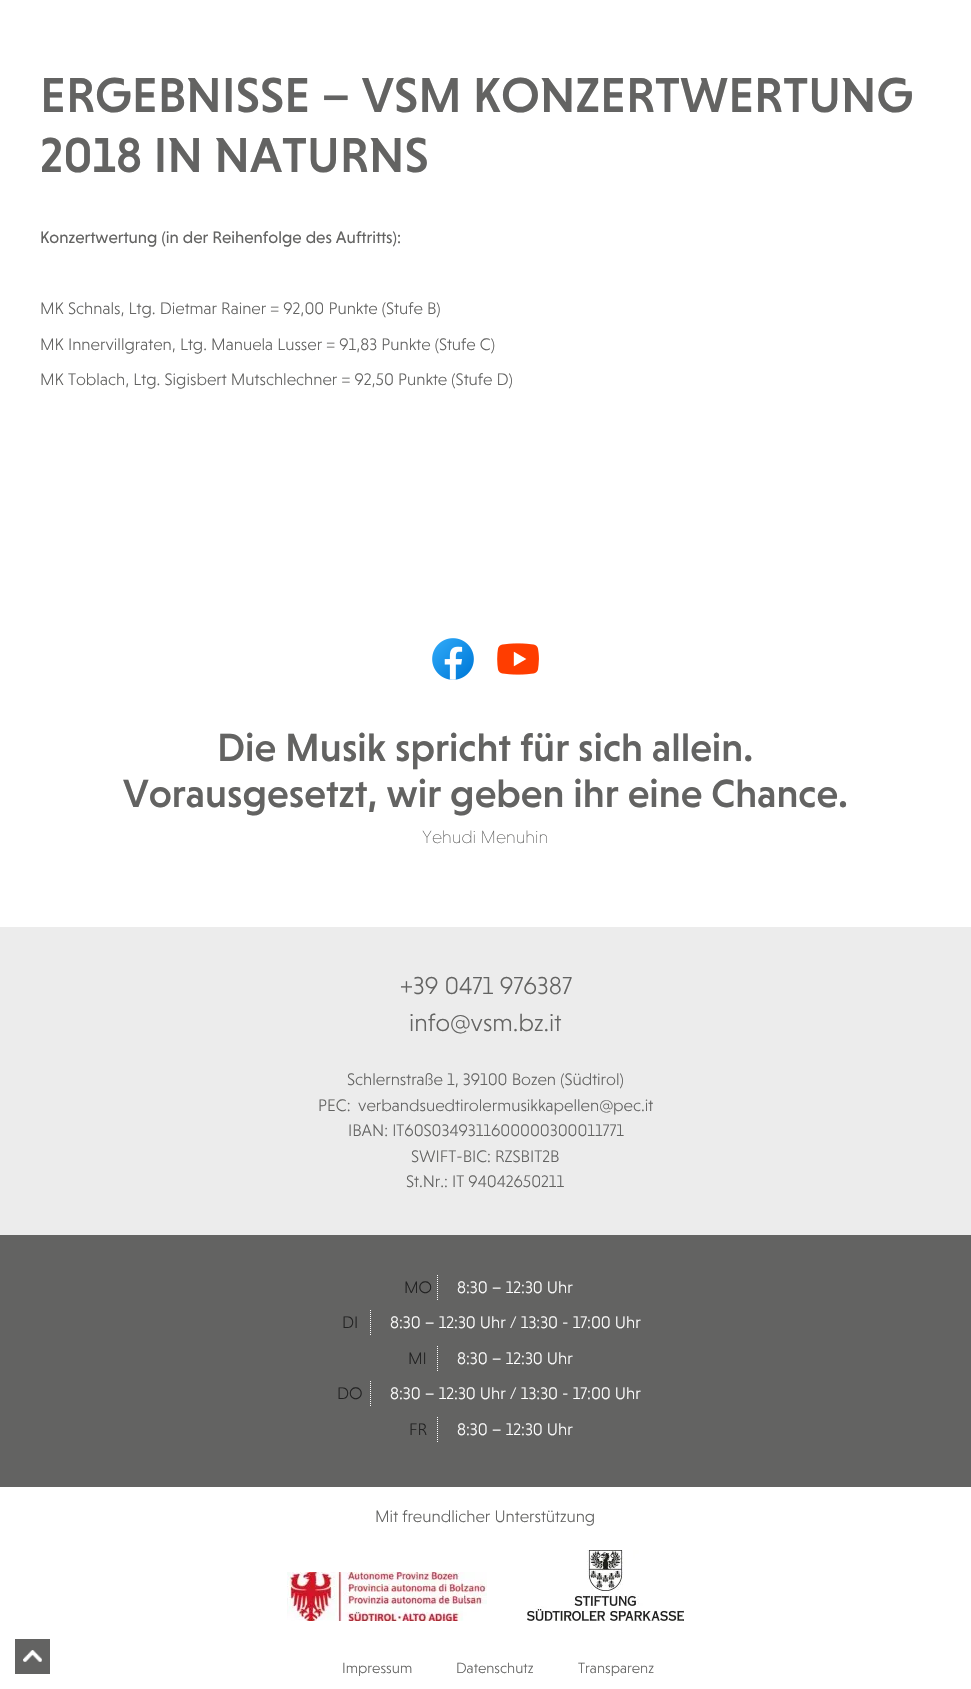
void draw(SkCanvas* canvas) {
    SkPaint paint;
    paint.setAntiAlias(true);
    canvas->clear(0xFFFFFFFF);
    SkFont font1(fontMgr->matchFamilyStyle("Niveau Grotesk", SkFontStyle(500, SkFontStyle::kNormal_Width, SkFontStyle::kUpright_Slant)), 50);
    font1.setSubpixel(true);
    paint.setColor(0xFF636362);
    canvas->drawString("ERGEBNISSE – VSM KONZERTWERTUNG", 40, 112, font1, paint);
    canvas->drawString("2018 IN NATURNS", 40, 172, font1, paint);
    SkFont font2(fontMgr->matchFamilyStyle("Niveau Grotesk", SkFontStyle::Normal()), 17);
    font2.setSubpixel(true);
    canvas->drawString("Konzertwertung (in der Reihenfolge des Auftritts):", 40, 243, font2, paint);
    SkFont font3(fontMgr->matchFamilyStyle("Niveau Grotesk", SkFontStyle(300, SkFontStyle::kNormal_Width, SkFontStyle::kUpright_Slant)), 17);
    font3.setSubpixel(true);
    canvas->drawString("MK Schnals, Ltg. Dietmar Rainer = 92,00 Punkte (Stufe B)", 40, 314, font3, paint);
    canvas->drawString("MK Innervillgraten, Ltg. Manuela Lusser = 91,83 Punkte (Stufe C)", 40, 350, font3, paint);
    canvas->drawString("MK Toblach, Ltg. Sigisbert Mutschlechner = 92,50 Punkte (Stufe D)", 40, 385, font3, paint);
    canvas->drawImageRect(SkImages::DeferredFromEncodedData(SkData::MakeFromFileName("img1.png")), SkRect::MakeXYWH(432, 638, 42, 42), SkSamplingOptions());
    canvas->drawImageRect(SkImages::DeferredFromEncodedData(SkData::MakeFromFileName("img2.png")), SkRect::MakeXYWH(497, 643, 42, 32), SkSamplingOptions());
    SkFont font4(fontMgr->matchFamilyStyle("Niveau Grotesk", SkFontStyle(500, SkFontStyle::kNormal_Width, SkFontStyle::kUpright_Slant)), 40);
    font4.setSubpixel(true);
    canvas->drawString("Die Musik spricht für sich allein.", 217, 761, font4, paint);
    canvas->drawString("Vorausgesetzt, wir geben ihr eine Chance.", 123, 807, font4, paint);
    SkFont font5(fontMgr->matchFamilyStyle("Niveau Grotesk", SkFontStyle(200, SkFontStyle::kNormal_Width, SkFontStyle::kUpright_Slant)), 18);
    font5.setSubpixel(true);
    canvas->drawString("Yehudi Menuhin", 422, 843, font5, paint);
    paint.setColor(0xFFECECEC);
    canvas->drawRect(SkRect::MakeXYWH(0, 927, 971, 308), paint);
    SkFont font6(fontMgr->matchFamilyStyle("Niveau Grotesk", SkFontStyle(300, SkFontStyle::kNormal_Width, SkFontStyle::kUpright_Slant)), 25);
    font6.setSubpixel(true);
    paint.setColor(0xFF636362);
    canvas->drawString("+39 0471 976387", 400, 994, font6, paint);
    canvas->drawString("info@vsm.bz.it", 409, 1031, font6, paint);
    canvas->drawString("Schlernstraße 1, 39100 Bozen (Südtirol)", 347, 1085, font3, paint);
    canvas->drawString("PEC:", 318, 1111, font3, paint);
    canvas->drawString("verbandsuedtirolermusikkapellen@pec.it", 358, 1111, font3, paint);
    canvas->drawString("IBAN: IT60S0349311600000300011771", 348, 1136, font3, paint);
    canvas->drawString("SWIFT-BIC: RZSBIT2B", 411, 1162, font3, paint);
    canvas->drawString("St.Nr.: IT 94042650211", 406, 1187, font3, paint);
    canvas->drawRect(SkRect::MakeXYWH(0, 1235, 971, 252), paint);
    paint.setStyle(SkPaint::kStroke_Style);
    paint.setStrokeWidth(1);
    paint.setColor(0xFFFFFFFF);
    paint.setPathEffect(SkDashPathEffect::Make({{1, 1}}, 0));
    canvas->drawPath(SkPathBuilder().moveTo(437.5f, 1275).lineTo(437.5f, 1300).detach(), paint);
    paint.setPathEffect(nullptr);
    paint.setStyle(SkPaint::kFill_Style);
    paint.setColor(0xFF222222);
    canvas->drawString("MO", 404, 1293, font3, paint);
    paint.setColor(0xFFFFFFFF);
    canvas->drawString("8:30 – 12:30 Uhr", 457, 1293, font3, paint);
    paint.setStyle(SkPaint::kStroke_Style);
    paint.setPathEffect(SkDashPathEffect::Make({{1, 1}}, 0));
    canvas->drawPath(SkPathBuilder().moveTo(370.5f, 1310).lineTo(370.5f, 1336).detach(), paint);
    paint.setPathEffect(nullptr);
    paint.setStyle(SkPaint::kFill_Style);
    paint.setColor(0xFF222222);
    canvas->drawString("DI", 342, 1328, font3, paint);
    paint.setColor(0xFFFFFFFF);
    canvas->drawString("8:30 – 12:30 Uhr / 13:30 - 17:00 Uhr", 390, 1328, font3, paint);
    paint.setStyle(SkPaint::kStroke_Style);
    paint.setPathEffect(SkDashPathEffect::Make({{1, 1}}, 0));
    canvas->drawPath(SkPathBuilder().moveTo(437.5f, 1346).lineTo(437.5f, 1371).detach(), paint);
    paint.setPathEffect(nullptr);
    paint.setStyle(SkPaint::kFill_Style);
    paint.setColor(0xFF222222);
    canvas->drawString("MI", 408, 1364, font3, paint);
    paint.setColor(0xFFFFFFFF);
    canvas->drawString("8:30 – 12:30 Uhr", 457, 1364, font3, paint);
    paint.setStyle(SkPaint::kStroke_Style);
    paint.setPathEffect(SkDashPathEffect::Make({{1, 1}}, 0));
    canvas->drawPath(SkPathBuilder().moveTo(370.5f, 1381).lineTo(370.5f, 1407).detach(), paint);
    paint.setPathEffect(nullptr);
    paint.setStyle(SkPaint::kFill_Style);
    paint.setColor(0xFF222222);
    canvas->drawString("DO", 337, 1399, font3, paint);
    paint.setColor(0xFFFFFFFF);
    canvas->drawString("8:30 – 12:30 Uhr / 13:30 - 17:00 Uhr", 390, 1399, font3, paint);
    paint.setStyle(SkPaint::kStroke_Style);
    paint.setPathEffect(SkDashPathEffect::Make({{1, 1}}, 0));
    canvas->drawPath(SkPathBuilder().moveTo(437.5f, 1417).lineTo(437.5f, 1442).detach(), paint);
    paint.setPathEffect(nullptr);
    paint.setStyle(SkPaint::kFill_Style);
    paint.setColor(0xFF222222);
    canvas->drawString("FR", 409, 1435, font3, paint);
    paint.setColor(0xFFFFFFFF);
    canvas->drawString("8:30 – 12:30 Uhr", 457, 1435, font3, paint);
    paint.setColor(0xFF636362);
    canvas->drawRect(SkRect::MakeXYWH(15, 1639, 35, 35), paint);
    canvas->drawImageRect(SkImages::DeferredFromEncodedData(SkData::MakeFromFileName("img3.png")), SkRect::MakeXYWH(23, 1650, 19, 12), SkSamplingOptions());
    canvas->drawString("Mit freundlicher Unterstützung", 375, 1522, font3, paint);
    canvas->drawImageRect(SkImages::DeferredFromEncodedData(SkData::MakeFromFileName("img4.png")), SkRect::MakeXYWH(287, 1572, 200, 49), SkSamplingOptions());
    canvas->drawImageRect(SkImages::DeferredFromEncodedData(SkData::MakeFromFileName("img5.png")), SkRect::MakeXYWH(527, 1550, 157, 71), SkSamplingOptions());
    SkFont font7(fontMgr->matchFamilyStyle("Niveau Grotesk", SkFontStyle(300, SkFontStyle::kNormal_Width, SkFontStyle::kUpright_Slant)), 15);
    font7.setSubpixel(true);
    canvas->drawString("Impressum", 342, 1673, font7, paint);
    canvas->drawString("Datenschutz", 456, 1673, font7, paint);
    canvas->drawString("Transparenz", 578, 1673, font7, paint);
}
